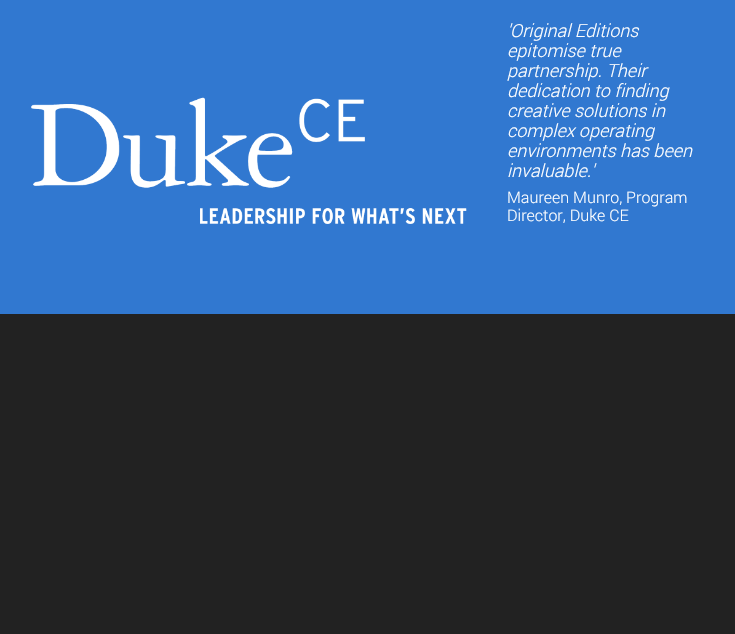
void draw(SkCanvas* canvas) {
    SkPaint paint;
    paint.setAntiAlias(true);
    canvas->clear(0xFF222222);
    paint.setColor(0xFF3178D0);
    canvas->drawRect(SkRect::MakeXYWH(0, 0, 735, 314), paint);
    canvas->drawImageRect(SkImages::DeferredFromEncodedData(SkData::MakeFromFileName("img1.png")), SkRect::MakeXYWH(31, 97, 436, 127), SkSamplingOptions());
    SkFont font1(fontMgr->matchFamilyStyle("Roboto", SkFontStyle(300, SkFontStyle::kNormal_Width, SkFontStyle::kItalic_Slant)), 18);
    font1.setSubpixel(true);
    paint.setColor(0xFFFFFFFF);
    canvas->drawString("'Original Editions", 507, 37, font1, paint);
    canvas->drawString("epitomise true", 507, 57, font1, paint);
    canvas->drawString("partnership. Their", 507, 77, font1, paint);
    canvas->drawString("dedication to finding", 507, 97, font1, paint);
    canvas->drawString("creative solutions in", 507, 117, font1, paint);
    canvas->drawString("complex operating", 507, 137, font1, paint);
    canvas->drawString("environments has been", 507, 157, font1, paint);
    canvas->drawString("invaluable.'", 507, 177, font1, paint);
    SkFont font2(fontMgr->matchFamilyStyle("Roboto", SkFontStyle(300, SkFontStyle::kNormal_Width, SkFontStyle::kUpright_Slant)), 16);
    font2.setSubpixel(true);
    canvas->drawString("Maureen Munro, Program", 507, 203, font2, paint);
    canvas->drawString("Director, Duke CE", 507, 221, font2, paint);
}
